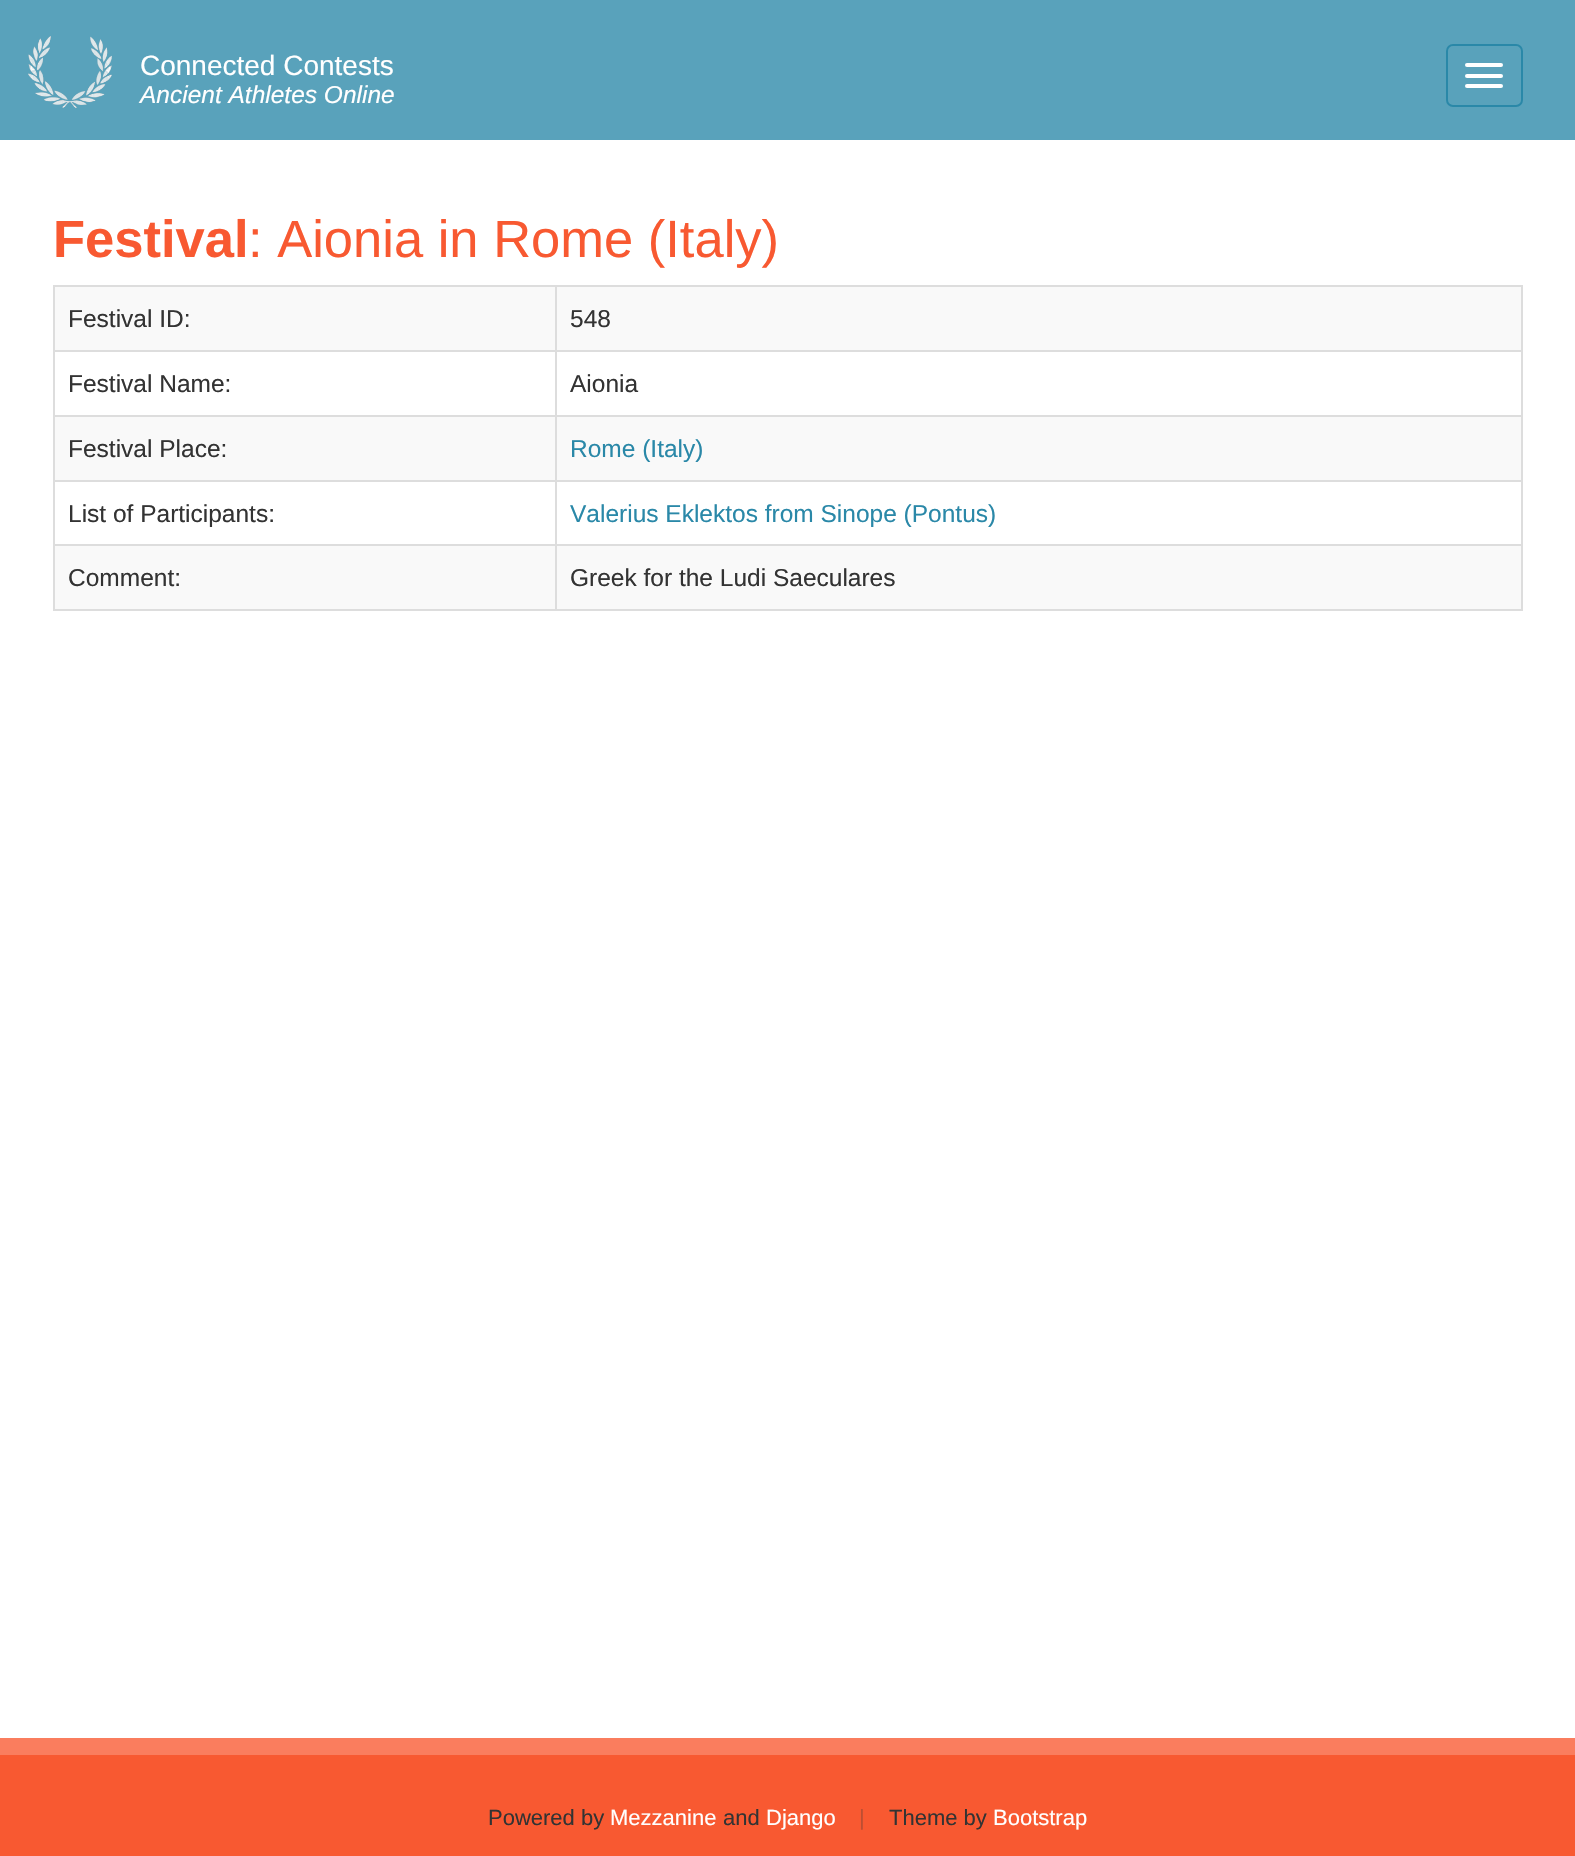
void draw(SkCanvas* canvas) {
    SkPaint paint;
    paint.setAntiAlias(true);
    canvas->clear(0xFFFFFFFF);
    paint.setColor(0xFF59A2BB);
    canvas->drawRect(SkRect::MakeXYWH(0, 0, 1575, 140), paint);
    canvas->drawImageRect(SkImages::DeferredFromEncodedData(SkData::MakeFromFileName("img1.png")), SkRect::MakeXYWH(28, 36, 84, 73), SkSamplingOptions());
    SkFont font1(fontMgr->matchFamilyStyle("Liberation Sans", SkFontStyle::Normal()), 28);
    font1.setSubpixel(true);
    paint.setColor(0xFFFFFFFF);
    canvas->drawString("Connected Contests", 140, 75, font1, paint);
    SkFont font2(fontMgr->matchFamilyStyle("Liberation Sans", SkFontStyle::Italic()), 24.5f);
    font2.setSubpixel(true);
    canvas->drawString("Ancient Athletes Online", 140, 103, font2, paint);
    paint.setStyle(SkPaint::kStroke_Style);
    paint.setStrokeWidth(2);
    paint.setColor(0xFF2A88A8);
    canvas->drawRoundRect(SkRect::MakeXYWH(1447, 45, 75, 61), 6, 6, paint);
    paint.setStyle(SkPaint::kFill_Style);
    paint.setColor(0xFFFFFFFF);
    canvas->drawRoundRect(SkRect::MakeXYWH(1465, 63, 38, 4), 2, 2, paint);
    canvas->drawRoundRect(SkRect::MakeXYWH(1465, 74, 38, 4), 2, 2, paint);
    canvas->drawRoundRect(SkRect::MakeXYWH(1465, 84, 38, 4), 2, 2, paint);
    SkFont font3(fontMgr->matchFamilyStyle("Liberation Sans", SkFontStyle::Bold()), 52.5f);
    font3.setSubpixel(true);
    paint.setColor(0xFFF85931);
    canvas->drawString("Festival", 53, 257, font3, paint);
    SkFont font4(fontMgr->matchFamilyStyle("Liberation Sans", SkFontStyle::Normal()), 52.5f);
    font4.setSubpixel(true);
    canvas->drawString(": Aionia in Rome (Italy)", 248, 257, font4, paint);
    paint.setColor(0xFFDDDDDD);
    canvas->drawRect(SkRect::MakeXYWH(53, 285, 1470, 2), paint);
    canvas->drawRect(SkRect::MakeXYWH(1521, 285, 2, 326), paint);
    canvas->drawRect(SkRect::MakeXYWH(53, 609, 1470, 2), paint);
    canvas->drawRect(SkRect::MakeXYWH(53, 285, 2, 326), paint);
    paint.setColor(0xFFF9F9F9);
    canvas->drawRect(SkRect::MakeXYWH(55, 287, 1466, 63), paint);
    SkFont font5(fontMgr->matchFamilyStyle("Liberation Sans", SkFontStyle::Normal()), 24.5f);
    font5.setSubpixel(true);
    paint.setColor(0xFF333333);
    canvas->drawString("Festival ID:", 68, 327, font5, paint);
    paint.setColor(0xFFDDDDDD);
    canvas->drawRect(SkRect::MakeXYWH(555, 350, 968, 2), paint);
    canvas->drawRect(SkRect::MakeXYWH(555, 415, 968, 2), paint);
    paint.setColor(0xFFF9F9F9);
    canvas->drawRect(SkRect::MakeXYWH(55, 417, 1466, 63), paint);
    paint.setColor(0xFFDDDDDD);
    canvas->drawRect(SkRect::MakeXYWH(555, 480, 968, 2), paint);
    canvas->drawRect(SkRect::MakeXYWH(555, 544, 968, 2), paint);
    paint.setColor(0xFFF9F9F9);
    canvas->drawRect(SkRect::MakeXYWH(55, 546, 1466, 63), paint);
    paint.setColor(0xFFDDDDDD);
    canvas->drawRect(SkRect::MakeXYWH(555, 544, 2, 67), paint);
    canvas->drawRect(SkRect::MakeXYWH(53, 544, 504, 2), paint);
    canvas->drawRect(SkRect::MakeXYWH(555, 480, 2, 66), paint);
    canvas->drawRect(SkRect::MakeXYWH(53, 480, 504, 2), paint);
    canvas->drawRect(SkRect::MakeXYWH(555, 415, 2, 66), paint);
    canvas->drawRect(SkRect::MakeXYWH(53, 415, 504, 2), paint);
    canvas->drawRect(SkRect::MakeXYWH(555, 350, 2, 67), paint);
    canvas->drawRect(SkRect::MakeXYWH(53, 350, 504, 2), paint);
    canvas->drawRect(SkRect::MakeXYWH(555, 285, 2, 67), paint);
    paint.setColor(0xFF333333);
    canvas->drawString("548", 570, 327, font5, paint);
    canvas->drawString("Festival Name:", 68, 392, font5, paint);
    canvas->drawString("Aionia", 570, 392, font5, paint);
    canvas->drawString("Festival Place:", 68, 457, font5, paint);
    paint.setColor(0xFF2A88A8);
    canvas->drawString("Rome (Italy)", 570, 457, font5, paint);
    paint.setColor(0xFF333333);
    canvas->drawString("List of Participants:", 68, 522, font5, paint);
    paint.setColor(0xFF2A88A8);
    canvas->drawString("Valerius Eklektos from Sinope (Pontus)", 570, 522, font5, paint);
    paint.setColor(0xFF333333);
    canvas->drawString("Comment:", 68, 586, font5, paint);
    canvas->drawString("Greek for the Ludi Saeculares", 570, 586, font5, paint);
    paint.setColor(0xFFF85931);
    canvas->drawRect(SkRect::MakeXYWH(0, 1755, 1575, 101), paint);
    paint.setColor(0xFFFA7D5E);
    canvas->drawRect(SkRect::MakeXYWH(0, 1738, 1575, 17), paint);
    SkFont font6(fontMgr->matchFamilyStyle("Liberation Sans", SkFontStyle::Normal()), 22);
    font6.setSubpixel(true);
    paint.setColor(0xFF333333);
    canvas->drawString("Powered by", 488, 1825, font6, paint);
    paint.setColor(0xFFFFFFFF);
    canvas->drawString("Mezzanine", 610, 1825, font6, paint);
    paint.setColor(0xFF333333);
    canvas->drawString("and", 723, 1825, font6, paint);
    paint.setColor(0xFFFFFFFF);
    canvas->drawString("Django", 766, 1825, font6, paint);
    paint.setColor(0xFFBD4E32);
    canvas->drawString("|", 859, 1825, font6, paint);
    paint.setColor(0xFF333333);
    canvas->drawString("Theme by", 889, 1825, font6, paint);
    paint.setColor(0xFFFFFFFF);
    canvas->drawString("Bootstrap", 993, 1825, font6, paint);
}
